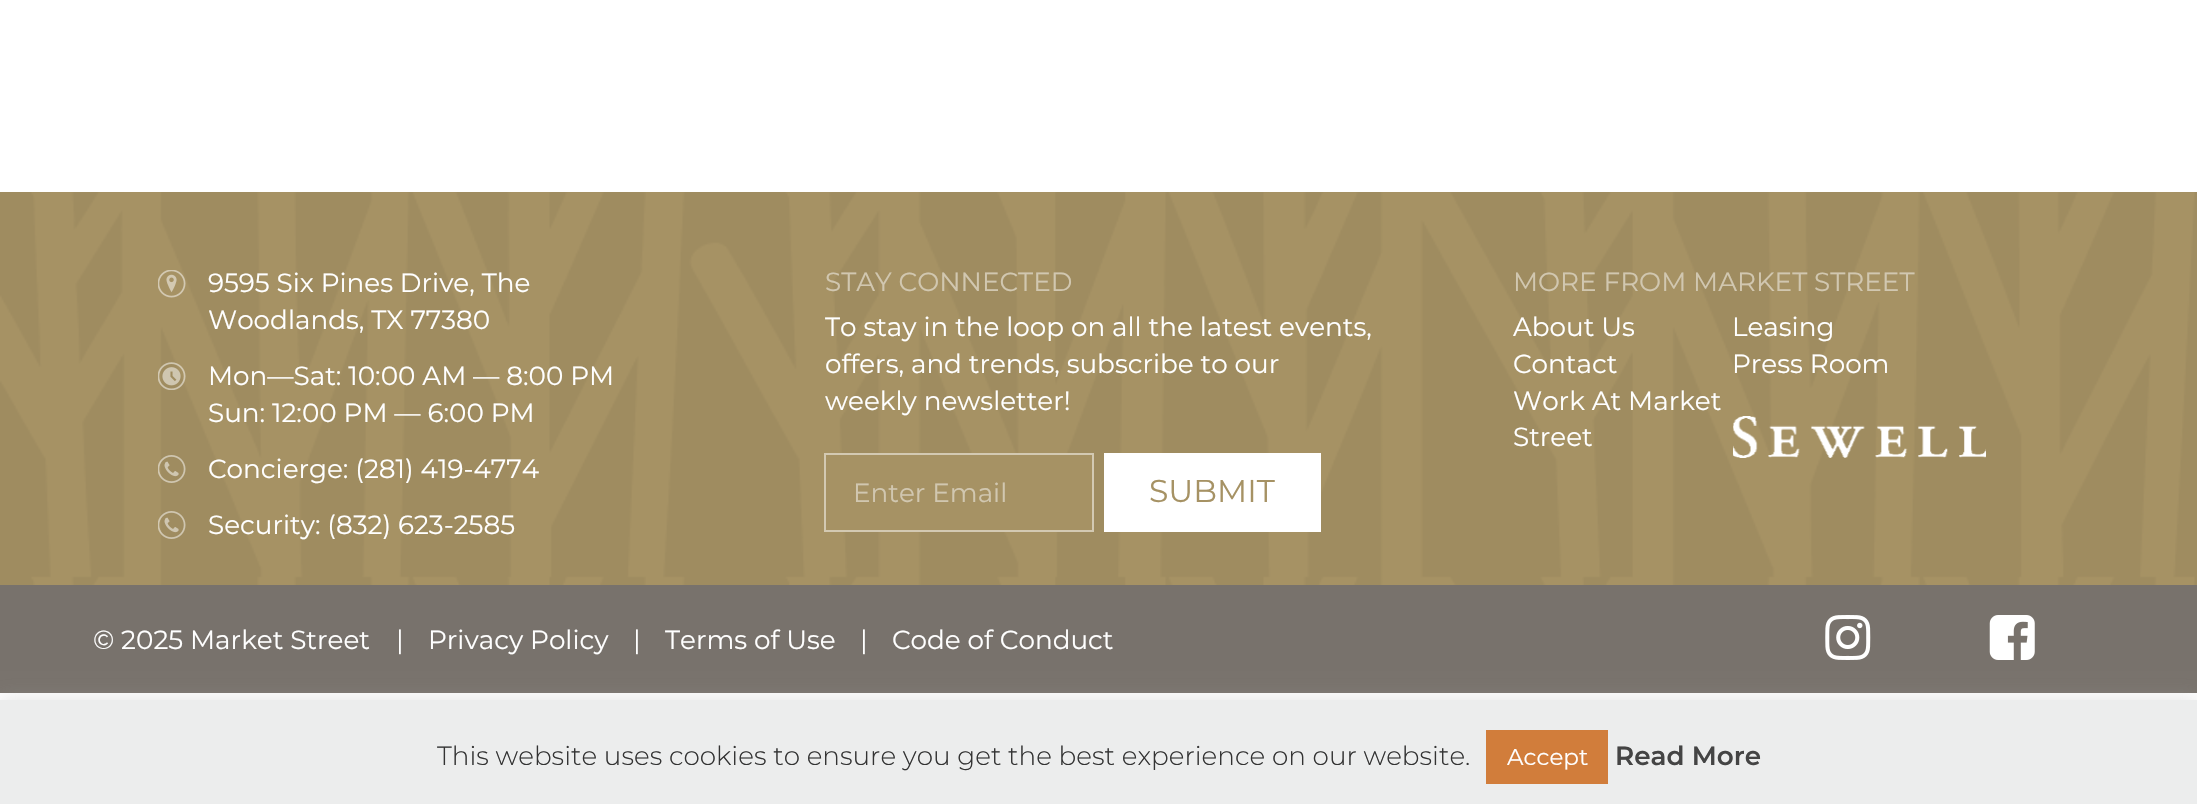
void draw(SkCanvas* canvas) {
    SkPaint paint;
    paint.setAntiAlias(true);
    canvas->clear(0xFFFFFFFF);
    canvas->drawImageRect(SkImages::DeferredFromEncodedData(SkData::MakeFromFileName("img1.png")), SkRect::MakeXYWH(0, 192, 2197, 393), SkSamplingOptions());
    canvas->drawImageRect(SkImages::DeferredFromEncodedData(SkData::MakeFromFileName("img2.png")), SkRect::MakeXYWH(158, 270, 28, 28), SkSamplingOptions());
    SkFont font1(fontMgr->matchFamilyStyle("Montserrat", SkFontStyle::Normal()), 26.25f);
    font1.setSubpixel(true);
    paint.setColor(0xFFFFFFFF);
    canvas->drawString("9595 Six Pines Drive, The", 208, 292, font1, paint);
    canvas->drawString("Woodlands, TX 77380", 208, 329, font1, paint);
    canvas->drawImageRect(SkImages::DeferredFromEncodedData(SkData::MakeFromFileName("img3.png")), SkRect::MakeXYWH(158, 362, 28, 28), SkSamplingOptions());
    canvas->drawString("Mon—Sat: 10:00 AM — 8:00 PM", 208, 385, font1, paint);
    canvas->drawString("Sun: 12:00 PM — 6:00 PM", 208, 422, font1, paint);
    canvas->drawImageRect(SkImages::DeferredFromEncodedData(SkData::MakeFromFileName("img4.png")), SkRect::MakeXYWH(158, 455, 28, 28), SkSamplingOptions());
    canvas->drawString("Concierge: (281) 419-4774", 208, 478, font1, paint);
    canvas->drawImageRect(SkImages::DeferredFromEncodedData(SkData::MakeFromFileName("img5.png")), SkRect::MakeXYWH(158, 511, 28, 28), SkSamplingOptions());
    canvas->drawString("Security: (832) 623-2585", 208, 534, font1, paint);
    paint.setColor(0xFFD1C7B0);
    canvas->drawString("STAY CONNECTED", 825, 291, font1, paint);
    paint.setColor(0xFFFFFFFF);
    canvas->drawString("To stay in the loop on all the latest events,", 825, 336, font1, paint);
    canvas->drawString("offers, and trends, subscribe to our", 825, 373, font1, paint);
    canvas->drawString("weekly newsletter!", 825, 410, font1, paint);
    paint.setColor(0xFFA69264);
    canvas->drawRect(SkRect::MakeXYWH(841, 455, 251, 75), paint);
    paint.setStyle(SkPaint::kStroke_Style);
    paint.setStrokeWidth(2);
    paint.setColor(0xFFD3C9B2);
    canvas->drawRect(SkRect::MakeXYWH(825, 454, 268, 77), paint);
    paint.setStyle(SkPaint::kFill_Style);
    paint.setColor(0xFFD1C7B0);
    canvas->drawString("Enter Email", 853, 502, font1, paint);
    paint.setColor(0xFFFFFFFF);
    canvas->drawRect(SkRect::MakeXYWH(1104, 453, 217, 79), paint);
    SkFont font2(fontMgr->matchFamilyStyle("Montserrat", SkFontStyle::Normal()), 31.5f);
    font2.setSubpixel(true);
    paint.setColor(0xFFA69264);
    canvas->drawString("SUBMIT", 1149, 502, font2, paint);
    paint.setColor(0xFFD1C7B0);
    canvas->drawString("MORE FROM MARKET STREET", 1513, 291, font1, paint);
    paint.setColor(0xFFFFFFFF);
    canvas->drawString("About Us", 1513, 336, font1, paint);
    canvas->drawString("Contact", 1513, 373, font1, paint);
    canvas->drawString("Work At Market", 1513, 410, font1, paint);
    canvas->drawString("Street", 1513, 446, font1, paint);
    canvas->drawString("Leasing", 1732, 336, font1, paint);
    canvas->drawString("Press Room", 1732, 373, font1, paint);
    canvas->drawImageRect(SkImages::DeferredFromEncodedData(SkData::MakeFromFileName("img6.png")), SkRect::MakeXYWH(1733, 416, 253, 42), SkSamplingOptions());
    paint.setColor(0xFF78726C);
    canvas->drawRect(SkRect::MakeXYWH(0, 585, 2197, 108), paint);
    paint.setColor(0xFFFFFFFF);
    canvas->drawString("© 2025 Market Street", 93, 649, font1, paint);
    canvas->drawString("|", 396, 649, font1, paint);
    canvas->drawString("Privacy Policy", 428, 649, font1, paint);
    canvas->drawString("|", 633, 649, font1, paint);
    canvas->drawString("Terms of Use", 665, 649, font1, paint);
    canvas->drawString("|", 860, 649, font1, paint);
    canvas->drawString("Code of Conduct", 892, 649, font1, paint);
    canvas->drawImageRect(SkImages::DeferredFromEncodedData(SkData::MakeFromFileName("img7.png")), SkRect::MakeXYWH(1825, 615, 46, 45), SkSamplingOptions());
    canvas->drawImageRect(SkImages::DeferredFromEncodedData(SkData::MakeFromFileName("img8.png")), SkRect::MakeXYWH(1989, 615, 46, 45), SkSamplingOptions());
    paint.setColor(0x4DACABAB);
    paint.setMaskFilter(SkMaskFilter::MakeBlur(kNormal_SkBlurStyle, 9));
    canvas->drawRect(SkRect::MakeXYWH(0, 698, 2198, 105), paint);
    paint.setMaskFilter(nullptr);
    paint.setColor(0xFFECEDED);
    canvas->drawRect(SkRect::MakeXYWH(0, 700, 2197, 104), paint);
    SkFont font3(fontMgr->matchFamilyStyle("Montserrat", SkFontStyle(300, SkFontStyle::kNormal_Width, SkFontStyle::kUpright_Slant)), 26.25f);
    font3.setSubpixel(true);
    paint.setColor(0xFF333333);
    canvas->drawString("This website uses cookies to ensure you get the best experience on our website.", 437, 765, font3, paint);
    paint.setColor(0xFFD17D3B);
    canvas->drawRect(SkRect::MakeXYWH(1486, 730, 122, 54), paint);
    SkFont font4(fontMgr->matchFamilyStyle("Montserrat", SkFontStyle::Normal()), 23);
    font4.setSubpixel(true);
    paint.setColor(0xFFFFFFFF);
    canvas->drawString("Accept", 1507, 765, font4, paint);
    SkFont font5(fontMgr->matchFamilyStyle("Montserrat", SkFontStyle(600, SkFontStyle::kNormal_Width, SkFontStyle::kUpright_Slant)), 26.25f);
    font5.setSubpixel(true);
    paint.setColor(0xFF444444);
    canvas->drawString("Read More", 1615, 765, font5, paint);
}
